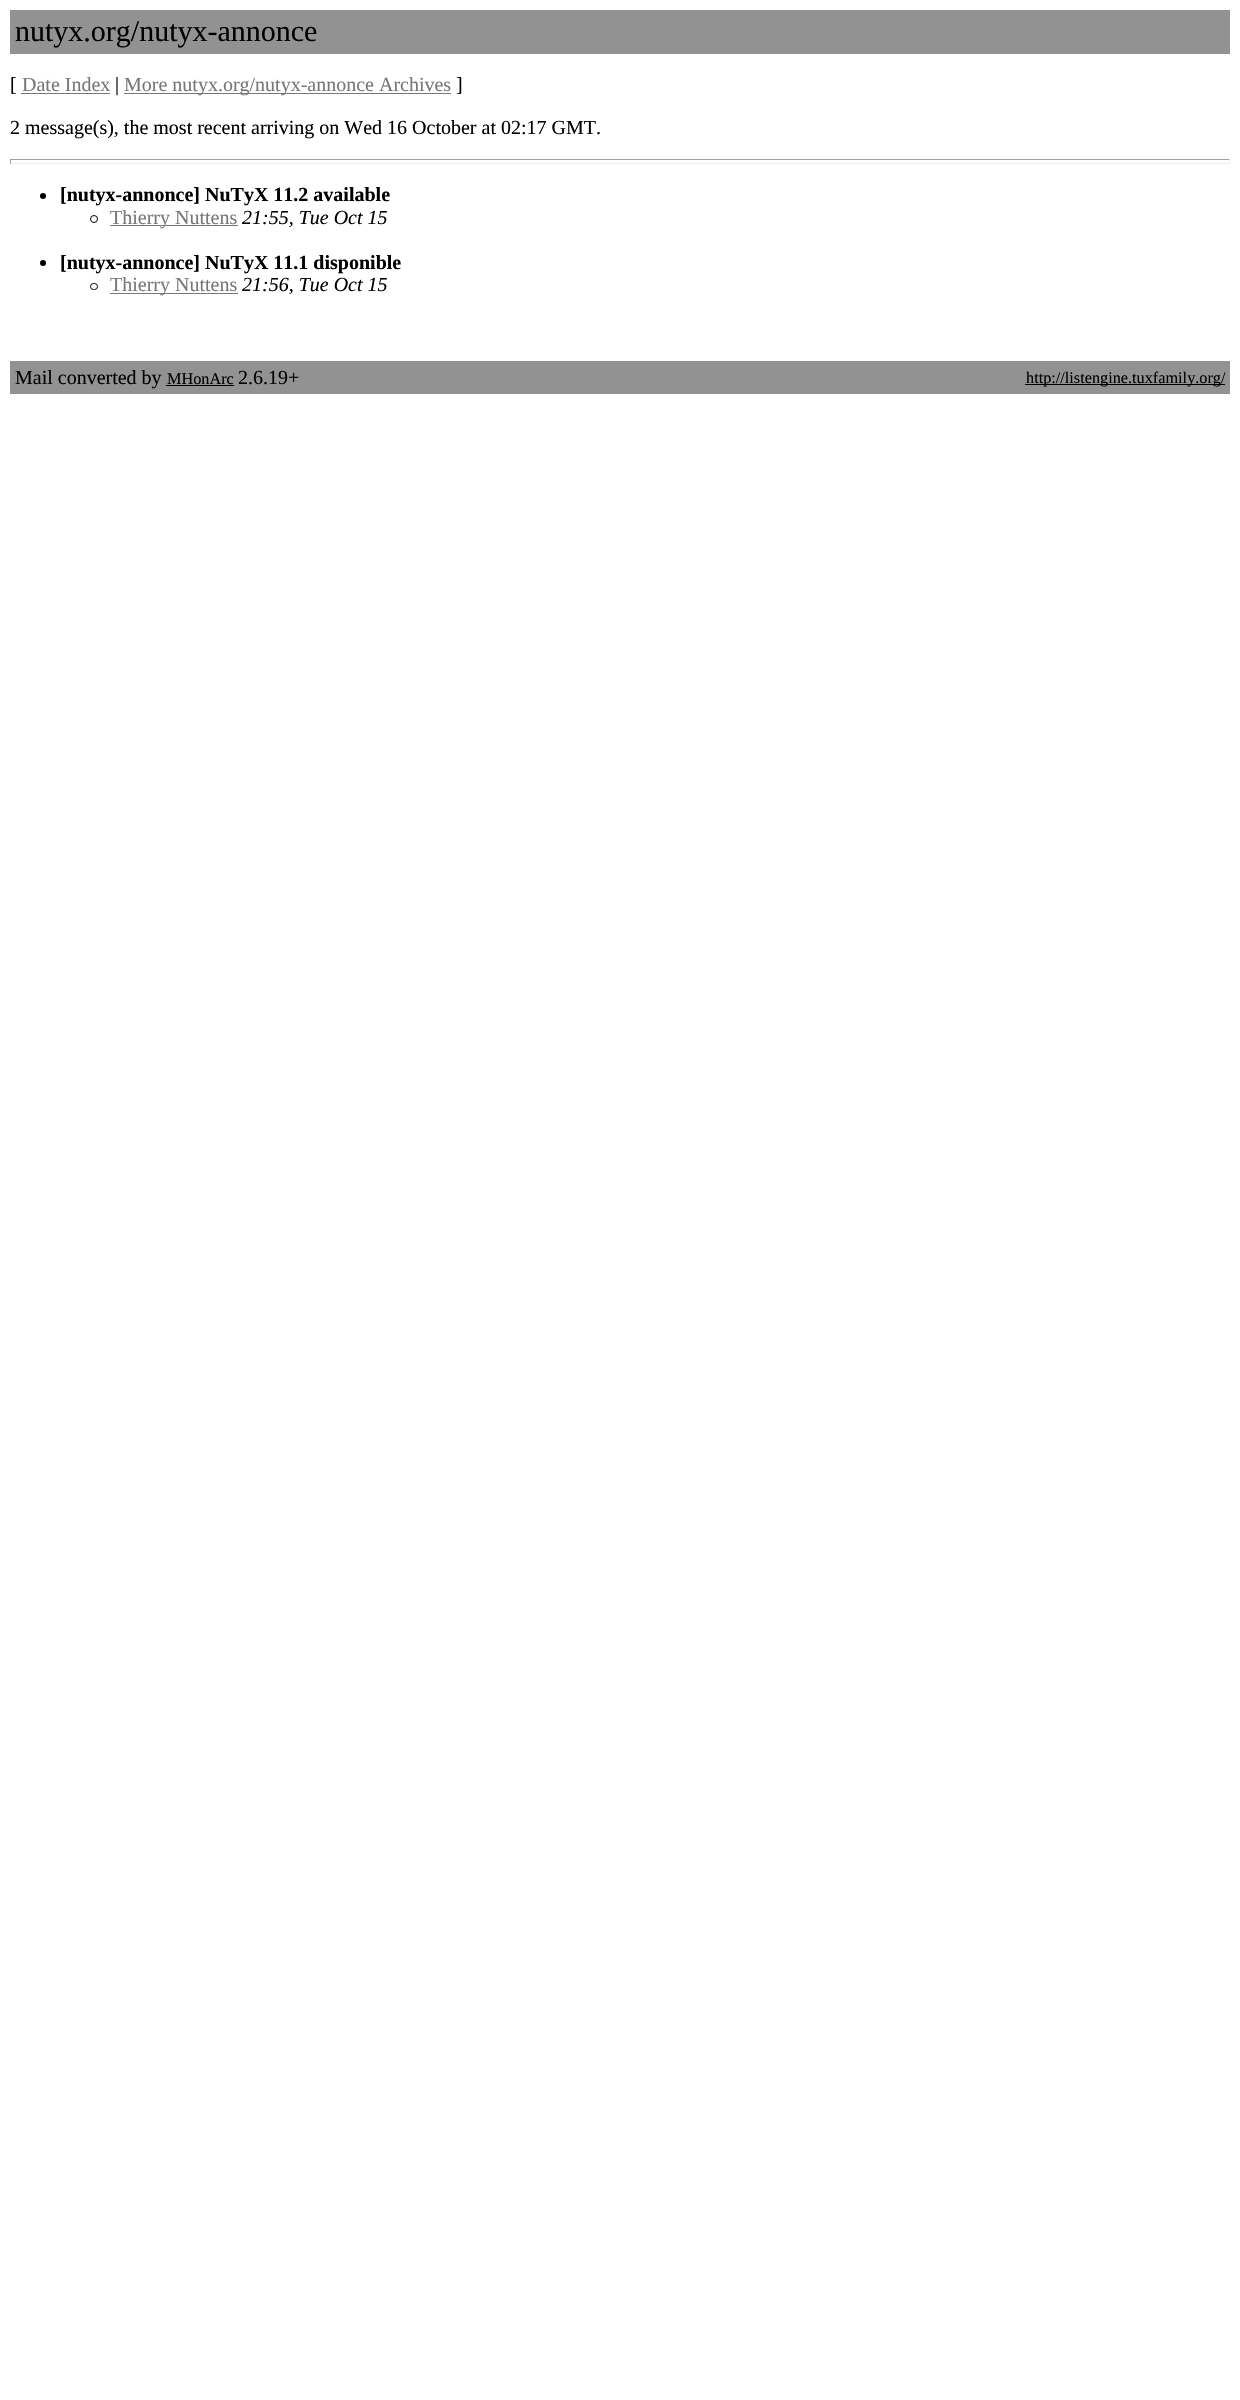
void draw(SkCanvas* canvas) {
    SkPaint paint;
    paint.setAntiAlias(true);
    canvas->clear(0xFFFFFFFF);
    paint.setColor(0xFF929292);
    canvas->drawRect(SkRect::MakeXYWH(10, 10, 1220, 44), paint);
    SkFont font1(fontMgr->matchFamilyStyle("Liberation Serif", SkFontStyle::Normal()), 30);
    font1.setSubpixel(true);
    paint.setColor(0xFF000000);
    canvas->drawString("nutyx.org/nutyx-annonce", 15, 41, font1, paint);
    SkFont font2(fontMgr->matchFamilyStyle("Liberation Serif", SkFontStyle::Normal()), 20);
    font2.setSubpixel(true);
    canvas->drawString("[", 10, 91, font2, paint);
    paint.setColor(0xFF777777);
    canvas->drawString("Date Index", 22, 91, font2, paint);
    canvas->drawRect(SkRect::MakeXYWH(21, 93, 89, 1), paint);
    paint.setColor(0xFF000000);
    canvas->drawString("|", 115, 91, font2, paint);
    paint.setColor(0xFF777777);
    canvas->drawRect(SkRect::MakeXYWH(124, 93, 327, 1), paint);
    canvas->drawString("More nutyx.org/nutyx-annonce Archives", 124, 91, font2, paint);
    paint.setColor(0xFF000000);
    canvas->drawString("]", 456, 91, font2, paint);
    canvas->drawString("2 message(s), the most recent arriving on Wed 16 October at 02:17 GMT.", 10, 134, font2, paint);
    paint.setColor(0xFF9F9F9F);
    canvas->drawRect(SkRect::MakeXYWH(10, 159, 1220, 1), paint);
    paint.setColor(0xFFEEEEEE);
    canvas->drawRect(SkRect::MakeXYWH(1229, 159, 1, 5), paint);
    canvas->drawRect(SkRect::MakeXYWH(10, 163, 1220, 1), paint);
    paint.setColor(0xFF9F9F9F);
    canvas->drawRect(SkRect::MakeXYWH(10, 159, 1, 5), paint);
    paint.setColor(0xFF000000);
    canvas->drawCircle(43, 196, 3, paint);
    SkFont font3(fontMgr->matchFamilyStyle("Liberation Serif", SkFontStyle::Bold()), 20);
    font3.setSubpixel(true);
    canvas->drawString("[nutyx-annonce] NuTyX 11.2 available", 60, 201, font3, paint);
    paint.setStyle(SkPaint::kStroke_Style);
    paint.setStrokeWidth(1);
    canvas->drawCircle(94, 219, 3.5f, paint);
    paint.setStyle(SkPaint::kFill_Style);
    paint.setColor(0xFF777777);
    canvas->drawRect(SkRect::MakeXYWH(110, 225, 128, 1), paint);
    canvas->drawString("Thierry Nuttens", 110, 224, font2, paint);
    SkFont font4(fontMgr->matchFamilyStyle("Liberation Serif", SkFontStyle::Italic()), 20);
    font4.setSubpixel(true);
    paint.setColor(0xFF000000);
    canvas->drawString("21:55, Tue Oct 15", 242, 224, font4, paint);
    canvas->drawCircle(43, 263, 3, paint);
    canvas->drawString("[nutyx-annonce] NuTyX 11.1 disponible", 60, 269, font3, paint);
    paint.setStyle(SkPaint::kStroke_Style);
    canvas->drawRoundRect(SkRect::MakeXYWH(90.5f, 283.5f, 7, 6), 3, 3, paint);
    paint.setStyle(SkPaint::kFill_Style);
    paint.setColor(0xFF777777);
    canvas->drawRect(SkRect::MakeXYWH(110, 293, 128, 1), paint);
    canvas->drawString("Thierry Nuttens", 110, 291, font2, paint);
    paint.setColor(0xFF000000);
    canvas->drawString("21:56, Tue Oct 15", 242, 291, font4, paint);
    paint.setColor(0xFF929292);
    canvas->drawRect(SkRect::MakeXYWH(10, 361, 1220, 33), paint);
    paint.setColor(0xFF000000);
    canvas->drawString("Mail converted by", 15, 384, font2, paint);
    SkFont font5(fontMgr->matchFamilyStyle("Liberation Serif", SkFontStyle::Normal()), 16.25f);
    font5.setSubpixel(true);
    canvas->drawString("MHonArc", 167, 384, font5, paint);
    canvas->drawRect(SkRect::MakeXYWH(166, 385, 68, 1), paint);
    canvas->drawString("2.6.19+", 238, 384, font2, paint);
    canvas->drawRect(SkRect::MakeXYWH(1025, 384, 200, 1), paint);
    canvas->drawString("http://listengine.tuxfamily.org/", 1026, 383, font5, paint);
}
